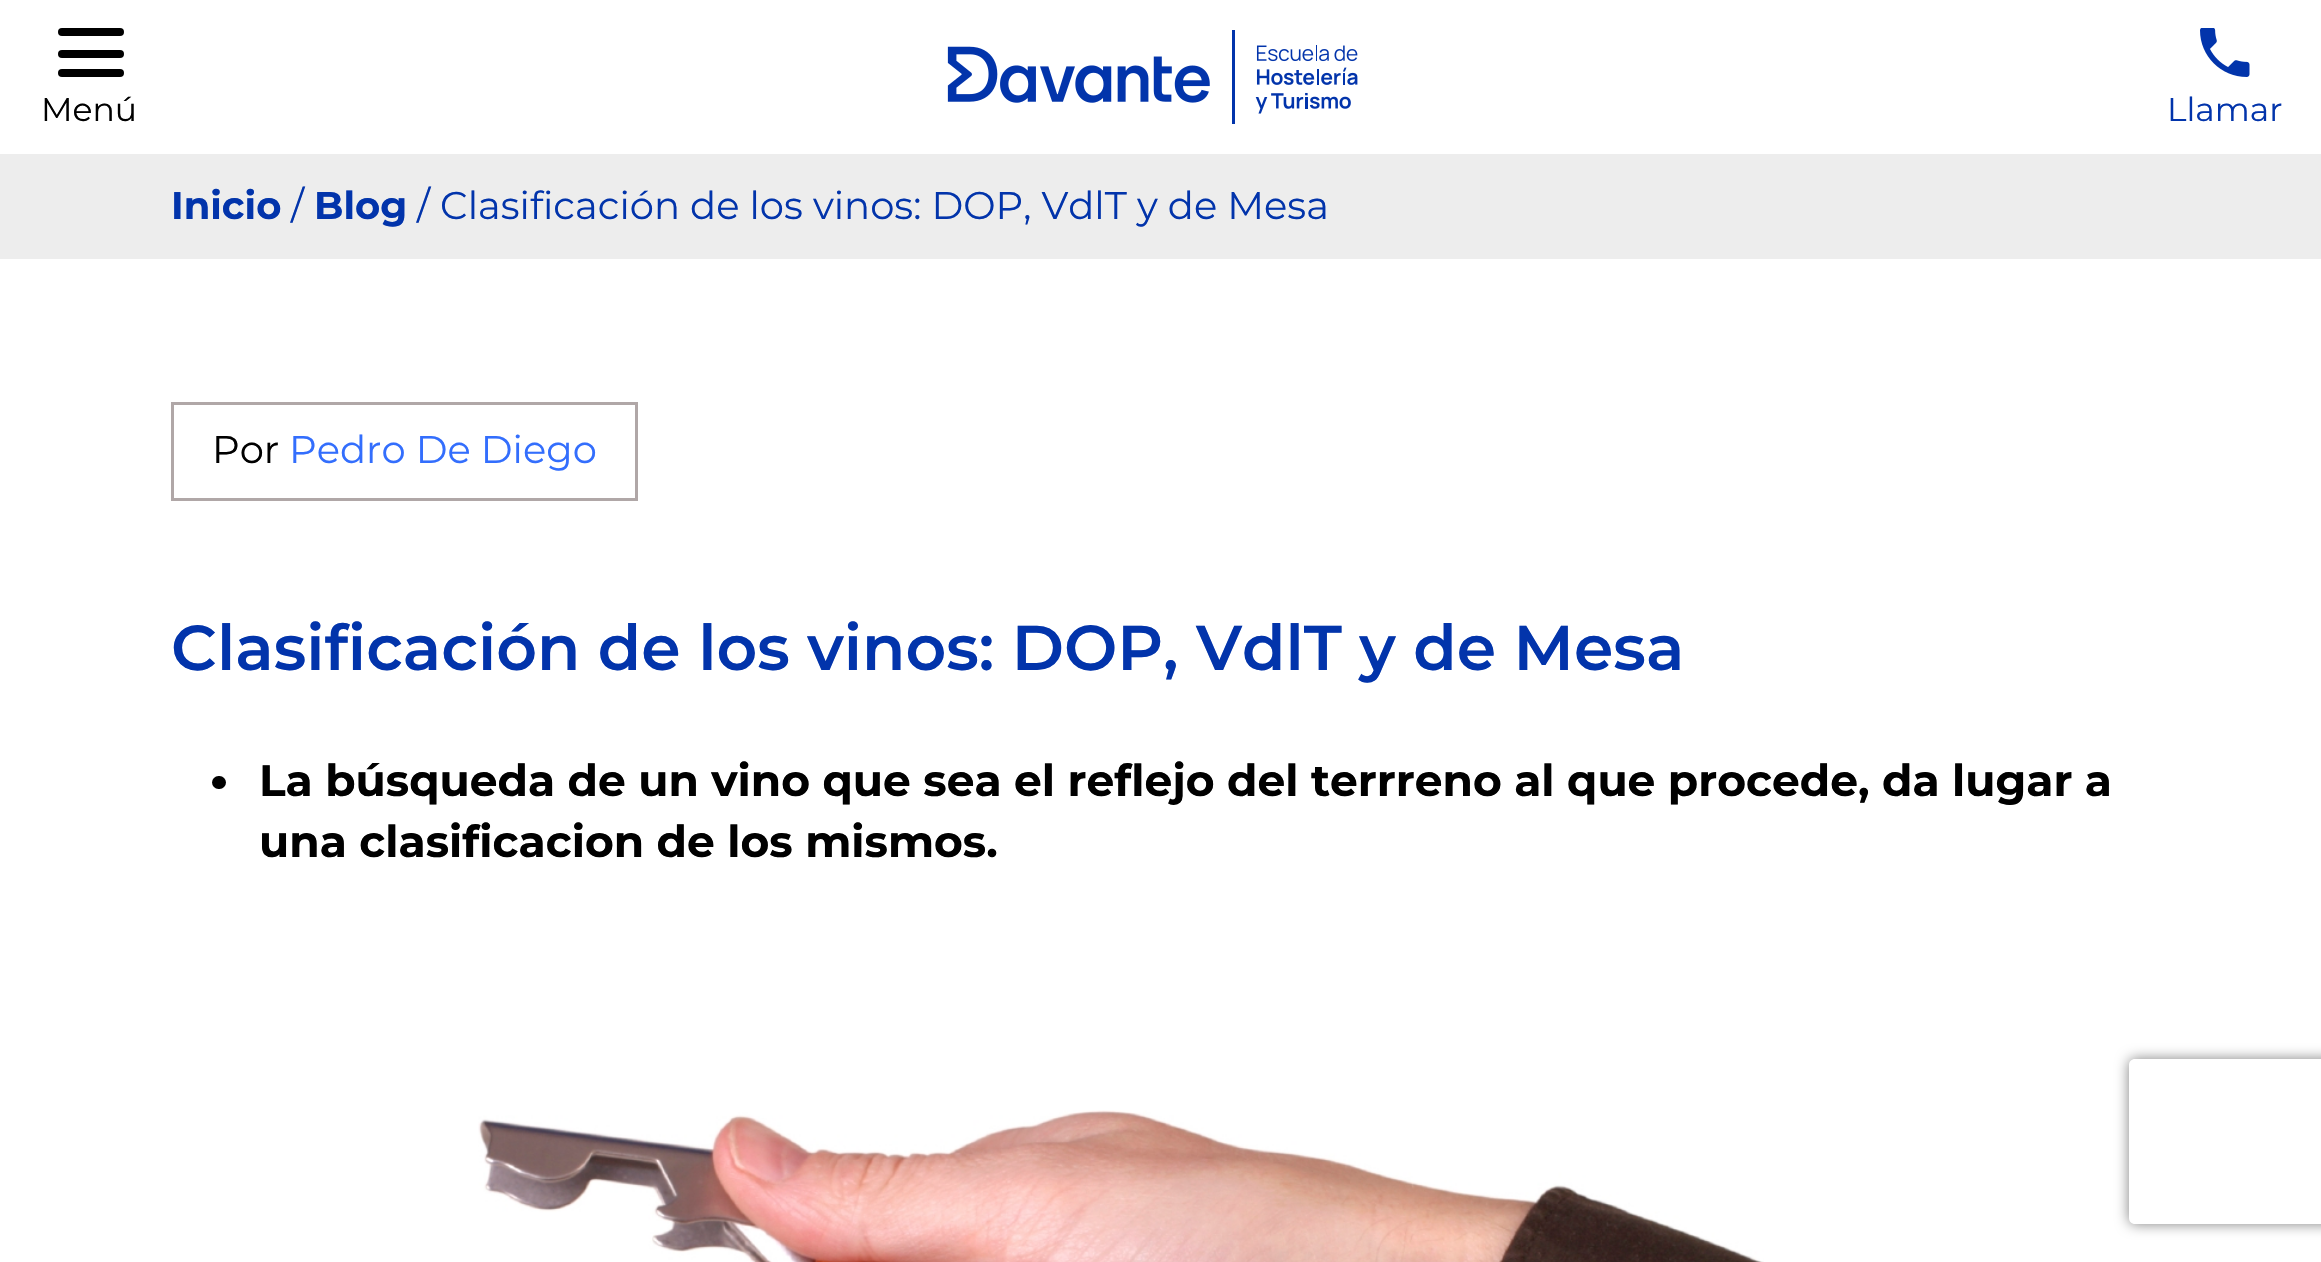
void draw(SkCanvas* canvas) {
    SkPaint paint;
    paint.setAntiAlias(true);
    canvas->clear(0xFFFFFFFF);
    paint.setColor(0xFF000000);
    canvas->drawRoundRect(SkRect::MakeXYWH(58, 28, 66, 8), 4, 4, paint);
    canvas->drawRoundRect(SkRect::MakeXYWH(58, 50, 66, 8), 4, 4, paint);
    canvas->drawRoundRect(SkRect::MakeXYWH(58, 69, 66, 8), 4, 4, paint);
    SkFont font1(fontMgr->matchFamilyStyle("Montserrat", SkFontStyle::Normal()), 33);
    font1.setSubpixel(true);
    canvas->drawString("Menú", 41, 121, font1, paint);
    canvas->drawImageRect(SkImages::DeferredFromEncodedData(SkData::MakeFromFileName("img1.png")), SkRect::MakeXYWH(947, 30, 411, 94), SkSamplingOptions());
    canvas->drawImageRect(SkImages::DeferredFromEncodedData(SkData::MakeFromFileName("img2.png")), SkRect::MakeXYWH(2200, 28, 50, 49), SkSamplingOptions());
    paint.setColor(0xFF0234AB);
    canvas->drawString("Llamar", 2167, 121, font1, paint);
    paint.setColor(0xFFEDEDED);
    canvas->drawRect(SkRect::MakeXYWH(0, 154, 2321, 105), paint);
    SkFont font2(fontMgr->matchFamilyStyle("Montserrat", SkFontStyle::Bold()), 38.5f);
    font2.setSubpixel(true);
    paint.setColor(0xFF0234AB);
    canvas->drawString("Inicio", 171, 219, font2, paint);
    SkFont font3(fontMgr->matchFamilyStyle("Montserrat", SkFontStyle::Normal()), 38.5f);
    font3.setSubpixel(true);
    canvas->drawString("/", 291, 219, font3, paint);
    canvas->drawString("Blog", 314, 219, font2, paint);
    canvas->drawString("/ Clasificación de los vinos: DOP, VdlT y de Mesa", 417, 219, font3, paint);
    paint.setStyle(SkPaint::kStroke_Style);
    paint.setStrokeWidth(3);
    paint.setColor(0xFFB0A7A7);
    canvas->drawRect(SkRect::MakeXYWH(172.5f, 403.5f, 464, 96), paint);
    paint.setStyle(SkPaint::kFill_Style);
    paint.setColor(0xFF000000);
    canvas->drawString("Por", 212, 463, font3, paint);
    paint.setColor(0xFF336EFD);
    canvas->drawString("Pedro De Diego", 289, 463, font3, paint);
    SkFont font4(fontMgr->matchFamilyStyle("Montserrat", SkFontStyle(600, SkFontStyle::kNormal_Width, SkFontStyle::kUpright_Slant)), 63.25f);
    font4.setSubpixel(true);
    paint.setColor(0xFF0234AB);
    canvas->drawString("Clasificación de los vinos: DOP, VdlT y de Mesa", 171, 670, font4, paint);
    paint.setColor(0xFF000000);
    canvas->drawRoundRect(SkRect::MakeXYWH(212, 776, 14, 13), 6.5f, 6.5f, paint);
    SkFont font5(fontMgr->matchFamilyStyle("Montserrat", SkFontStyle::Bold()), 44);
    font5.setSubpixel(true);
    canvas->drawString("La búsqueda de un vino que sea el reflejo del terrreno al que procede, da lugar a", 259, 796, font5, paint);
    canvas->drawString("una clasificacion de los mismos.", 259, 857, font5, paint);
    canvas->drawImageRect(SkImages::DeferredFromEncodedData(SkData::MakeFromFileName("img3.png")), SkRect::MakeXYWH(478, 1110, 1286, 152), SkSamplingOptions());
    canvas->save();
    canvas->clipPath(SkPathBuilder(SkPathFillType::kEvenOdd).moveTo(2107, 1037).lineTo(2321, 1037).lineTo(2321, 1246).lineTo(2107, 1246).close().moveTo(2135, 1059).lineTo(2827, 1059).cubicTo(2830.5f, 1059, 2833, 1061.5f, 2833, 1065).lineTo(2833, 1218).cubicTo(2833, 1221.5f, 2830.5f, 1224, 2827, 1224).lineTo(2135, 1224).cubicTo(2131.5f, 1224, 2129, 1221.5f, 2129, 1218).lineTo(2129, 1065).cubicTo(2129, 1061.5f, 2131.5f, 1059, 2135, 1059).close().detach(), true);
    paint.setColor(0xFF808080);
    paint.setMaskFilter(SkMaskFilter::MakeBlur(kNormal_SkBlurStyle, 7));
    canvas->drawRoundRect(SkRect::MakeXYWH(2129, 1059, 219, 165), 6, 6, paint);
    paint.setMaskFilter(nullptr);
    canvas->restore();
}
